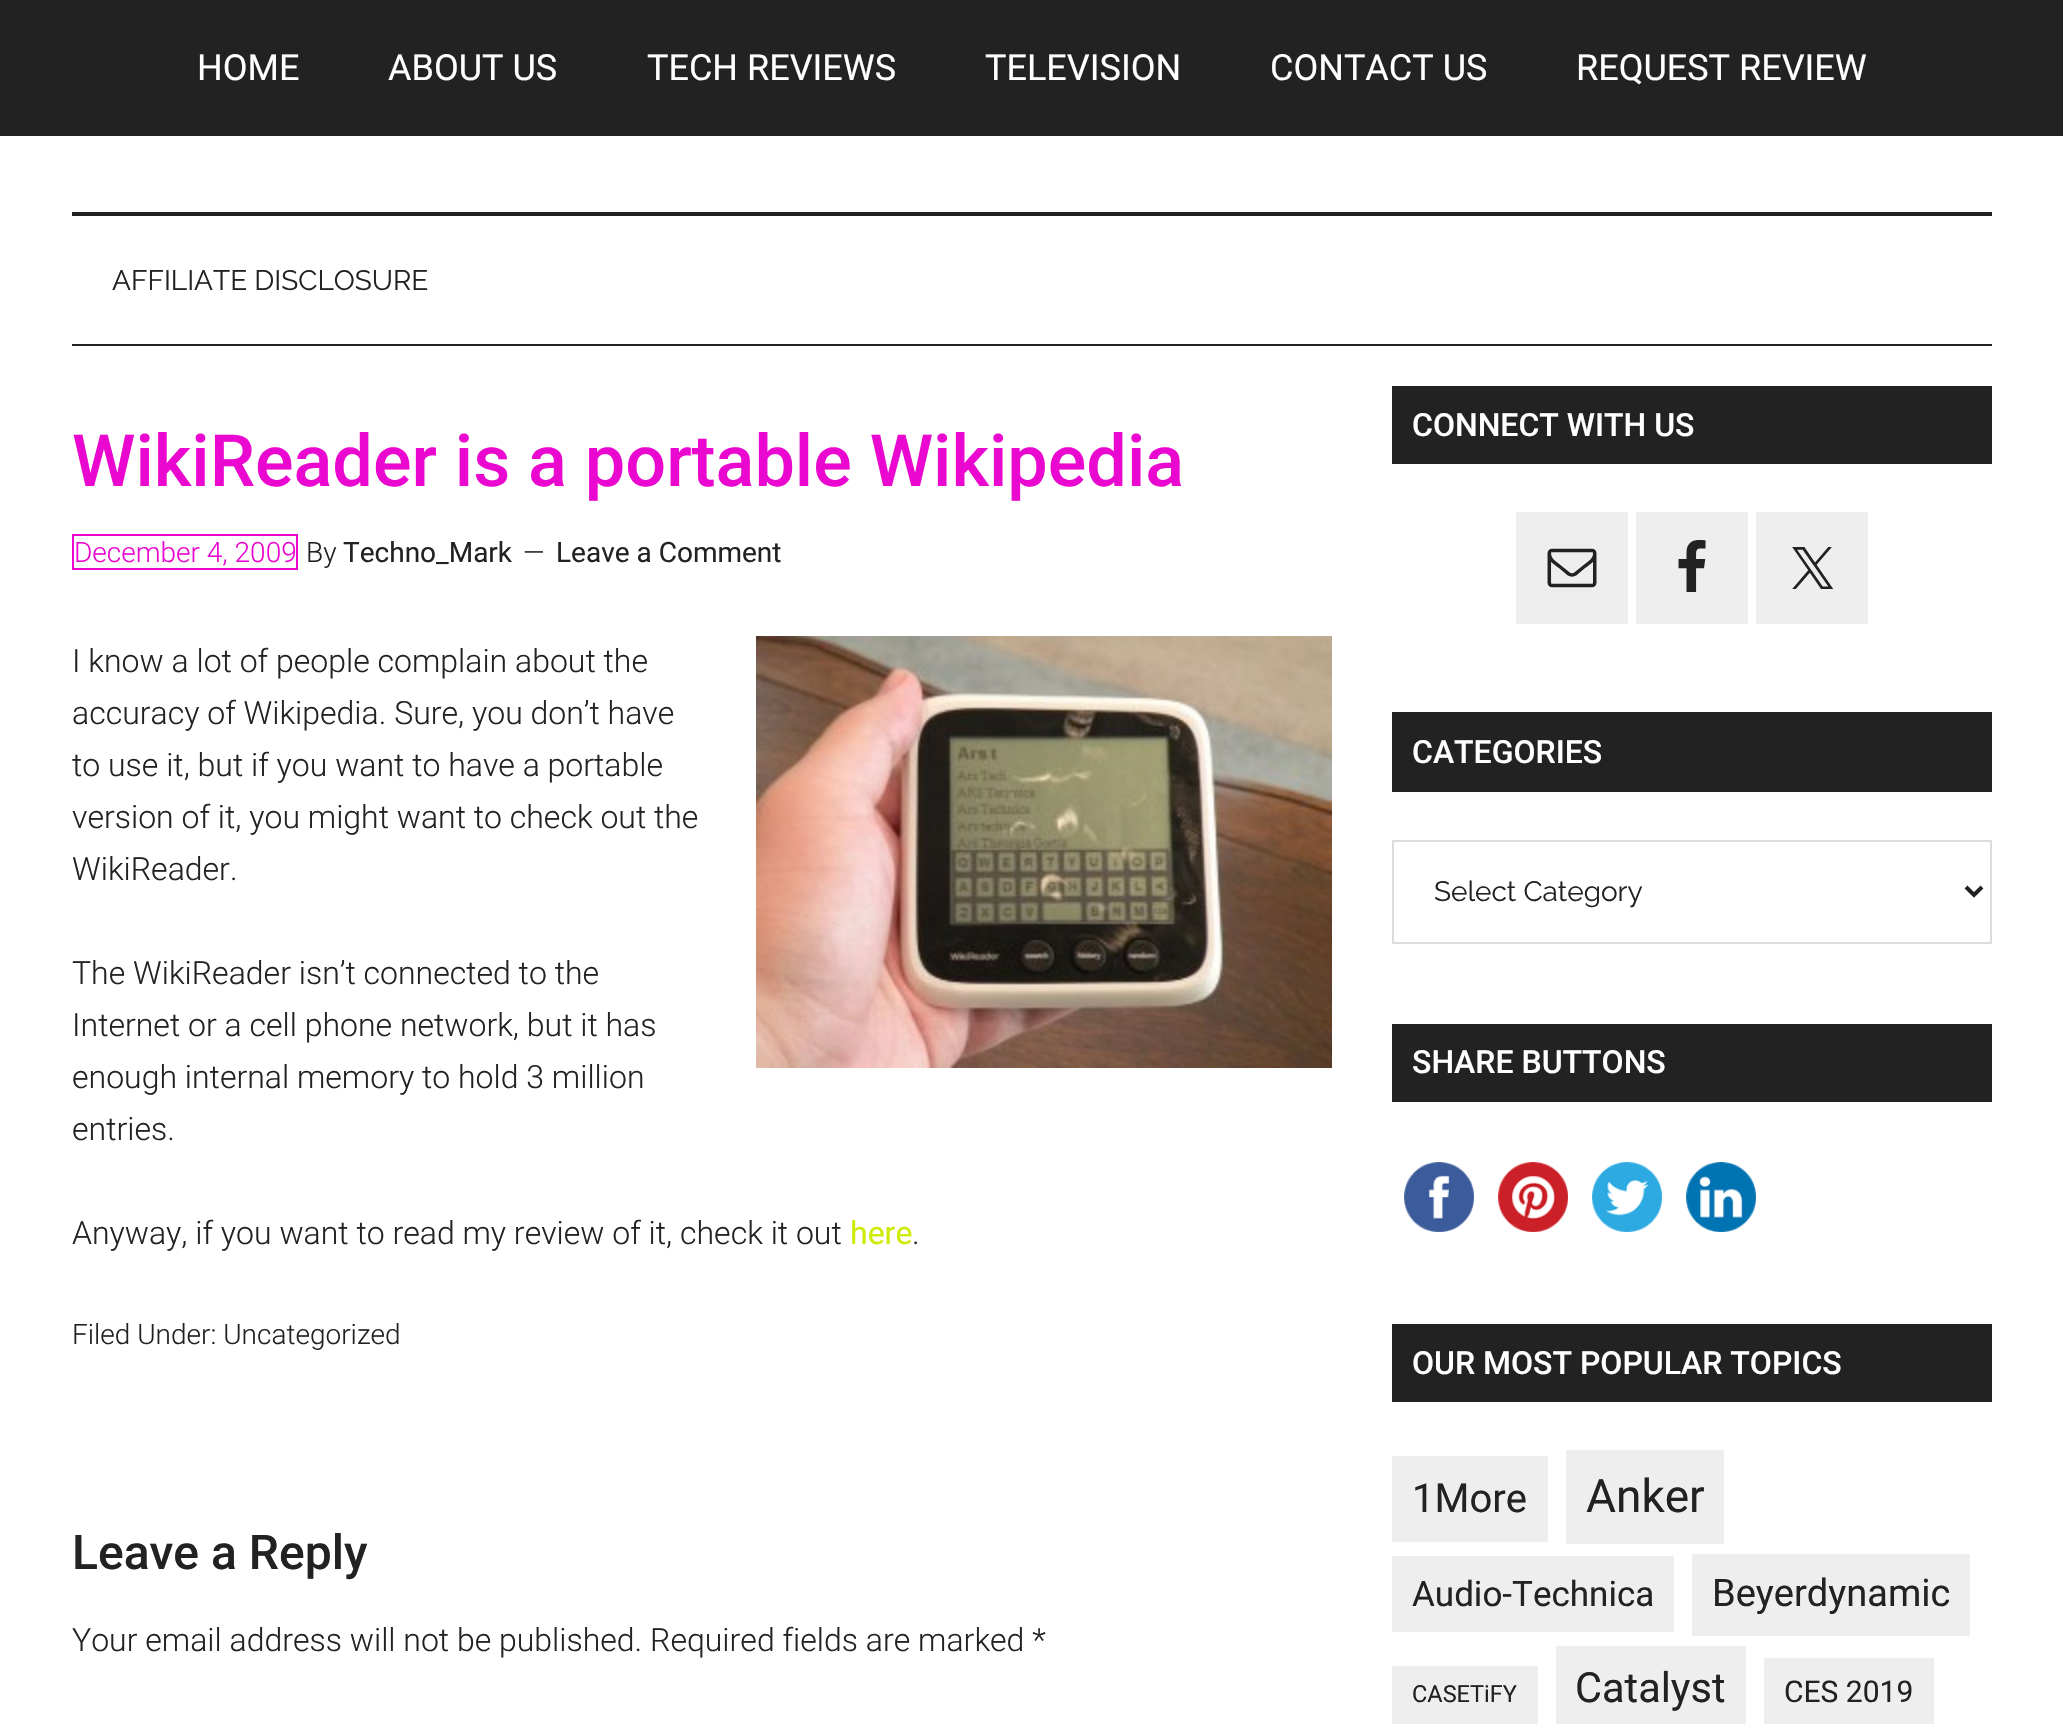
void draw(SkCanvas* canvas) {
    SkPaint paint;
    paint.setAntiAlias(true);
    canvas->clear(0xFFFFFFFF);
    paint.setColor(0xFF222222);
    canvas->drawRect(SkRect::MakeXYWH(0, 0, 2063, 136), paint);
    SkFont font1(fontMgr->matchFamilyStyle("Roboto", SkFontStyle::Normal()), 36);
    font1.setSubpixel(true);
    paint.setColor(0xFFFFFFFF);
    canvas->drawString("HOME", 197, 80, font1, paint);
    canvas->drawString("ABOUT US", 388, 80, font1, paint);
    canvas->drawString("TECH REVIEWS", 647, 80, font1, paint);
    canvas->drawString("TELEVISION", 985, 80, font1, paint);
    canvas->drawString("CONTACT US", 1270, 80, font1, paint);
    canvas->drawString("REQUEST REVIEW", 1576, 80, font1, paint);
    paint.setColor(0xFF222222);
    canvas->drawRect(SkRect::MakeXYWH(72, 212, 1920, 4), paint);
    canvas->drawRect(SkRect::MakeXYWH(72, 344, 1920, 2), paint);
    SkFont font2(fontMgr->matchFamilyStyle("Raleway", SkFontStyle::Normal()), 28);
    font2.setSubpixel(true);
    canvas->drawString("AFFILIATE DISCLOSURE", 112, 290, font2, paint);
    SkFont font3(fontMgr->matchFamilyStyle("Roboto", SkFontStyle(500, SkFontStyle::kNormal_Width, SkFontStyle::kUpright_Slant)), 72);
    font3.setSubpixel(true);
    paint.setColor(0xFFEA07D0);
    canvas->drawString("WikiReader is a portable Wikipedia", 72, 486, font3, paint);
    paint.setStyle(SkPaint::kStroke_Style);
    paint.setStrokeWidth(2);
    canvas->drawRect(SkRect::MakeXYWH(73, 535, 224, 34), paint);
    SkFont font4(fontMgr->matchFamilyStyle("Roboto", SkFontStyle(300, SkFontStyle::kNormal_Width, SkFontStyle::kUpright_Slant)), 28);
    font4.setSubpixel(true);
    paint.setStyle(SkPaint::kFill_Style);
    canvas->drawString("December 4, 2009", 74, 562, font4, paint);
    paint.setColor(0xFF222222);
    canvas->drawString("By", 306, 562, font4, paint);
    SkFont font5(fontMgr->matchFamilyStyle("Roboto", SkFontStyle::Normal()), 28);
    font5.setSubpixel(true);
    canvas->drawString("Techno_Mark", 343, 562, font5, paint);
    canvas->drawString("—", 523, 562, font4, paint);
    canvas->drawString("Leave a Comment", 556, 562, font5, paint);
    SkFont font6(fontMgr->matchFamilyStyle("Roboto", SkFontStyle(300, SkFontStyle::kNormal_Width, SkFontStyle::kUpright_Slant)), 32);
    font6.setSubpixel(true);
    canvas->drawString("I know a lot of people complain about the", 72, 672, font6, paint);
    canvas->drawImageRect(SkImages::DeferredFromEncodedData(SkData::MakeFromFileName("img1.png")), SkRect::MakeXYWH(756, 636, 576, 432), SkSamplingOptions());
    canvas->drawString("accuracy of Wikipedia. Sure, you don’t have", 72, 724, font6, paint);
    canvas->drawString("to use it, but if you want to have a portable", 72, 776, font6, paint);
    canvas->drawString("version of it, you might want to check out the", 72, 828, font6, paint);
    canvas->drawString("WikiReader.", 72, 880, font6, paint);
    canvas->drawString("The WikiReader isn’t connected to the", 72, 984, font6, paint);
    canvas->drawString("Internet or a cell phone network, but it has", 72, 1036, font6, paint);
    canvas->drawString("enough internal memory to hold 3 million", 72, 1088, font6, paint);
    canvas->drawString("entries.", 72, 1140, font6, paint);
    canvas->drawString("Anyway, if you want to read my review of it, check it out", 72, 1244, font6, paint);
    SkFont font7(fontMgr->matchFamilyStyle("Roboto", SkFontStyle::Normal()), 32);
    font7.setSubpixel(true);
    paint.setColor(0xFFD0EA07);
    canvas->drawString("here", 850, 1244, font7, paint);
    paint.setColor(0xFF222222);
    canvas->drawString(".", 912, 1244, font6, paint);
    canvas->drawString("Filed Under: Uncategorized", 72, 1344, font4, paint);
    SkFont font8(fontMgr->matchFamilyStyle("Roboto", SkFontStyle(500, SkFontStyle::kNormal_Width, SkFontStyle::kUpright_Slant)), 48);
    font8.setSubpixel(true);
    canvas->drawString("Leave a Reply", 72, 1569, font8, paint);
    canvas->drawString("Your email address will not be published. Required fields are marked *", 72, 1651, font6, paint);
    canvas->drawRect(SkRect::MakeXYWH(1392, 386, 600, 78), paint);
    SkFont font9(fontMgr->matchFamilyStyle("Roboto", SkFontStyle(500, SkFontStyle::kNormal_Width, SkFontStyle::kUpright_Slant)), 32);
    font9.setSubpixel(true);
    paint.setColor(0xFFFFFFFF);
    canvas->drawString("CONNECT WITH US", 1412, 436, font9, paint);
    paint.setColor(0xFFEEEEEE);
    canvas->drawRect(SkRect::MakeXYWH(1516, 512, 112, 112), paint);
    canvas->drawImageRect(SkImages::DeferredFromEncodedData(SkData::MakeFromFileName("img2.png")), SkRect::MakeXYWH(1547, 548, 50, 40), SkSamplingOptions());
    canvas->drawRect(SkRect::MakeXYWH(1636, 512, 112, 112), paint);
    canvas->drawImageRect(SkImages::DeferredFromEncodedData(SkData::MakeFromFileName("img3.png")), SkRect::MakeXYWH(1678, 540, 28, 52), SkSamplingOptions());
    canvas->drawRect(SkRect::MakeXYWH(1756, 512, 112, 112), paint);
    canvas->drawImageRect(SkImages::DeferredFromEncodedData(SkData::MakeFromFileName("img4.png")), SkRect::MakeXYWH(1792, 547, 42, 42), SkSamplingOptions());
    paint.setColor(0xFF222222);
    canvas->drawRect(SkRect::MakeXYWH(1392, 712, 600, 80), paint);
    paint.setColor(0xFFFFFFFF);
    canvas->drawString("CATEGORIES", 1412, 763, font9, paint);
    paint.setStyle(SkPaint::kStroke_Style);
    paint.setColor(0xFFDDDDDD);
    canvas->drawRect(SkRect::MakeXYWH(1393, 841, 598, 102), paint);
    paint.setStrokeWidth(4);
    paint.setColor(0xFF222222);
    canvas->drawPath(SkPathBuilder().moveTo(1966, 887).lineTo(1974, 895).lineTo(1982, 887).detach(), paint);
    paint.setStyle(SkPaint::kFill_Style);
    canvas->drawString("Select Category", 1434, 901, font2, paint);
    canvas->drawRect(SkRect::MakeXYWH(1392, 1024, 600, 78), paint);
    paint.setColor(0xFFFFFFFF);
    canvas->drawString("SHARE BUTTONS", 1412, 1073, font9, paint);
    canvas->drawImageRect(SkImages::DeferredFromEncodedData(SkData::MakeFromFileName("img5.png")), SkRect::MakeXYWH(1404, 1162, 70, 70), SkSamplingOptions());
    canvas->drawImageRect(SkImages::DeferredFromEncodedData(SkData::MakeFromFileName("img6.png")), SkRect::MakeXYWH(1498, 1162, 70, 70), SkSamplingOptions());
    canvas->drawImageRect(SkImages::DeferredFromEncodedData(SkData::MakeFromFileName("img7.png")), SkRect::MakeXYWH(1592, 1162, 70, 70), SkSamplingOptions());
    canvas->drawImageRect(SkImages::DeferredFromEncodedData(SkData::MakeFromFileName("img8.png")), SkRect::MakeXYWH(1686, 1162, 70, 70), SkSamplingOptions());
    paint.setColor(0xFF222222);
    canvas->drawRect(SkRect::MakeXYWH(1392, 1324, 600, 78), paint);
    paint.setColor(0xFFFFFFFF);
    canvas->drawString("OUR MOST POPULAR TOPICS", 1412, 1374, font9, paint);
    paint.setColor(0xFFEEEEEE);
    canvas->drawRect(SkRect::MakeXYWH(1392, 1456, 156, 86), paint);
    SkFont font10(fontMgr->matchFamilyStyle("Roboto", SkFontStyle::Normal()), 40);
    font10.setSubpixel(true);
    paint.setColor(0xFF222222);
    canvas->drawString("1More", 1412, 1512, font10, paint);
    paint.setColor(0xFFEEEEEE);
    canvas->drawRect(SkRect::MakeXYWH(1566, 1450, 158, 94), paint);
    SkFont font11(fontMgr->matchFamilyStyle("Roboto", SkFontStyle::Normal()), 46);
    font11.setSubpixel(true);
    paint.setColor(0xFF222222);
    canvas->drawString("Anker", 1586, 1512, font11, paint);
    paint.setColor(0xFFEEEEEE);
    canvas->drawRect(SkRect::MakeXYWH(1392, 1556, 282, 76), paint);
    SkFont font12(fontMgr->matchFamilyStyle("Roboto", SkFontStyle::Normal()), 35);
    font12.setSubpixel(true);
    paint.setColor(0xFF222222);
    canvas->drawString("Audio-Technica", 1412, 1606, font12, paint);
    paint.setColor(0xFFEEEEEE);
    canvas->drawRect(SkRect::MakeXYWH(1692, 1554, 278, 82), paint);
    SkFont font13(fontMgr->matchFamilyStyle("Roboto", SkFontStyle::Normal()), 38);
    font13.setSubpixel(true);
    paint.setColor(0xFF222222);
    canvas->drawString("Beyerdynamic", 1712, 1606, font13, paint);
    paint.setColor(0xFFEEEEEE);
    canvas->drawRect(SkRect::MakeXYWH(1392, 1666, 146, 58), paint);
    SkFont font14(fontMgr->matchFamilyStyle("Roboto", SkFontStyle::Normal()), 23.5f);
    font14.setSubpixel(true);
    paint.setColor(0xFF222222);
    canvas->drawString("CASETiFY", 1412, 1702, font14, paint);
    paint.setColor(0xFFEEEEEE);
    canvas->drawRect(SkRect::MakeXYWH(1556, 1646, 190, 78), paint);
    SkFont font15(fontMgr->matchFamilyStyle("Roboto", SkFontStyle::Normal()), 41.5f);
    font15.setSubpixel(true);
    paint.setColor(0xFF222222);
    canvas->drawString("Catalyst", 1575, 1702, font15, paint);
    paint.setColor(0xFFEEEEEE);
    canvas->drawRect(SkRect::MakeXYWH(1764, 1658, 170, 66), paint);
    SkFont font16(fontMgr->matchFamilyStyle("Roboto", SkFontStyle::Normal()), 30);
    font16.setSubpixel(true);
    paint.setColor(0xFF222222);
    canvas->drawString("CES 2019", 1784, 1702, font16, paint);
}
